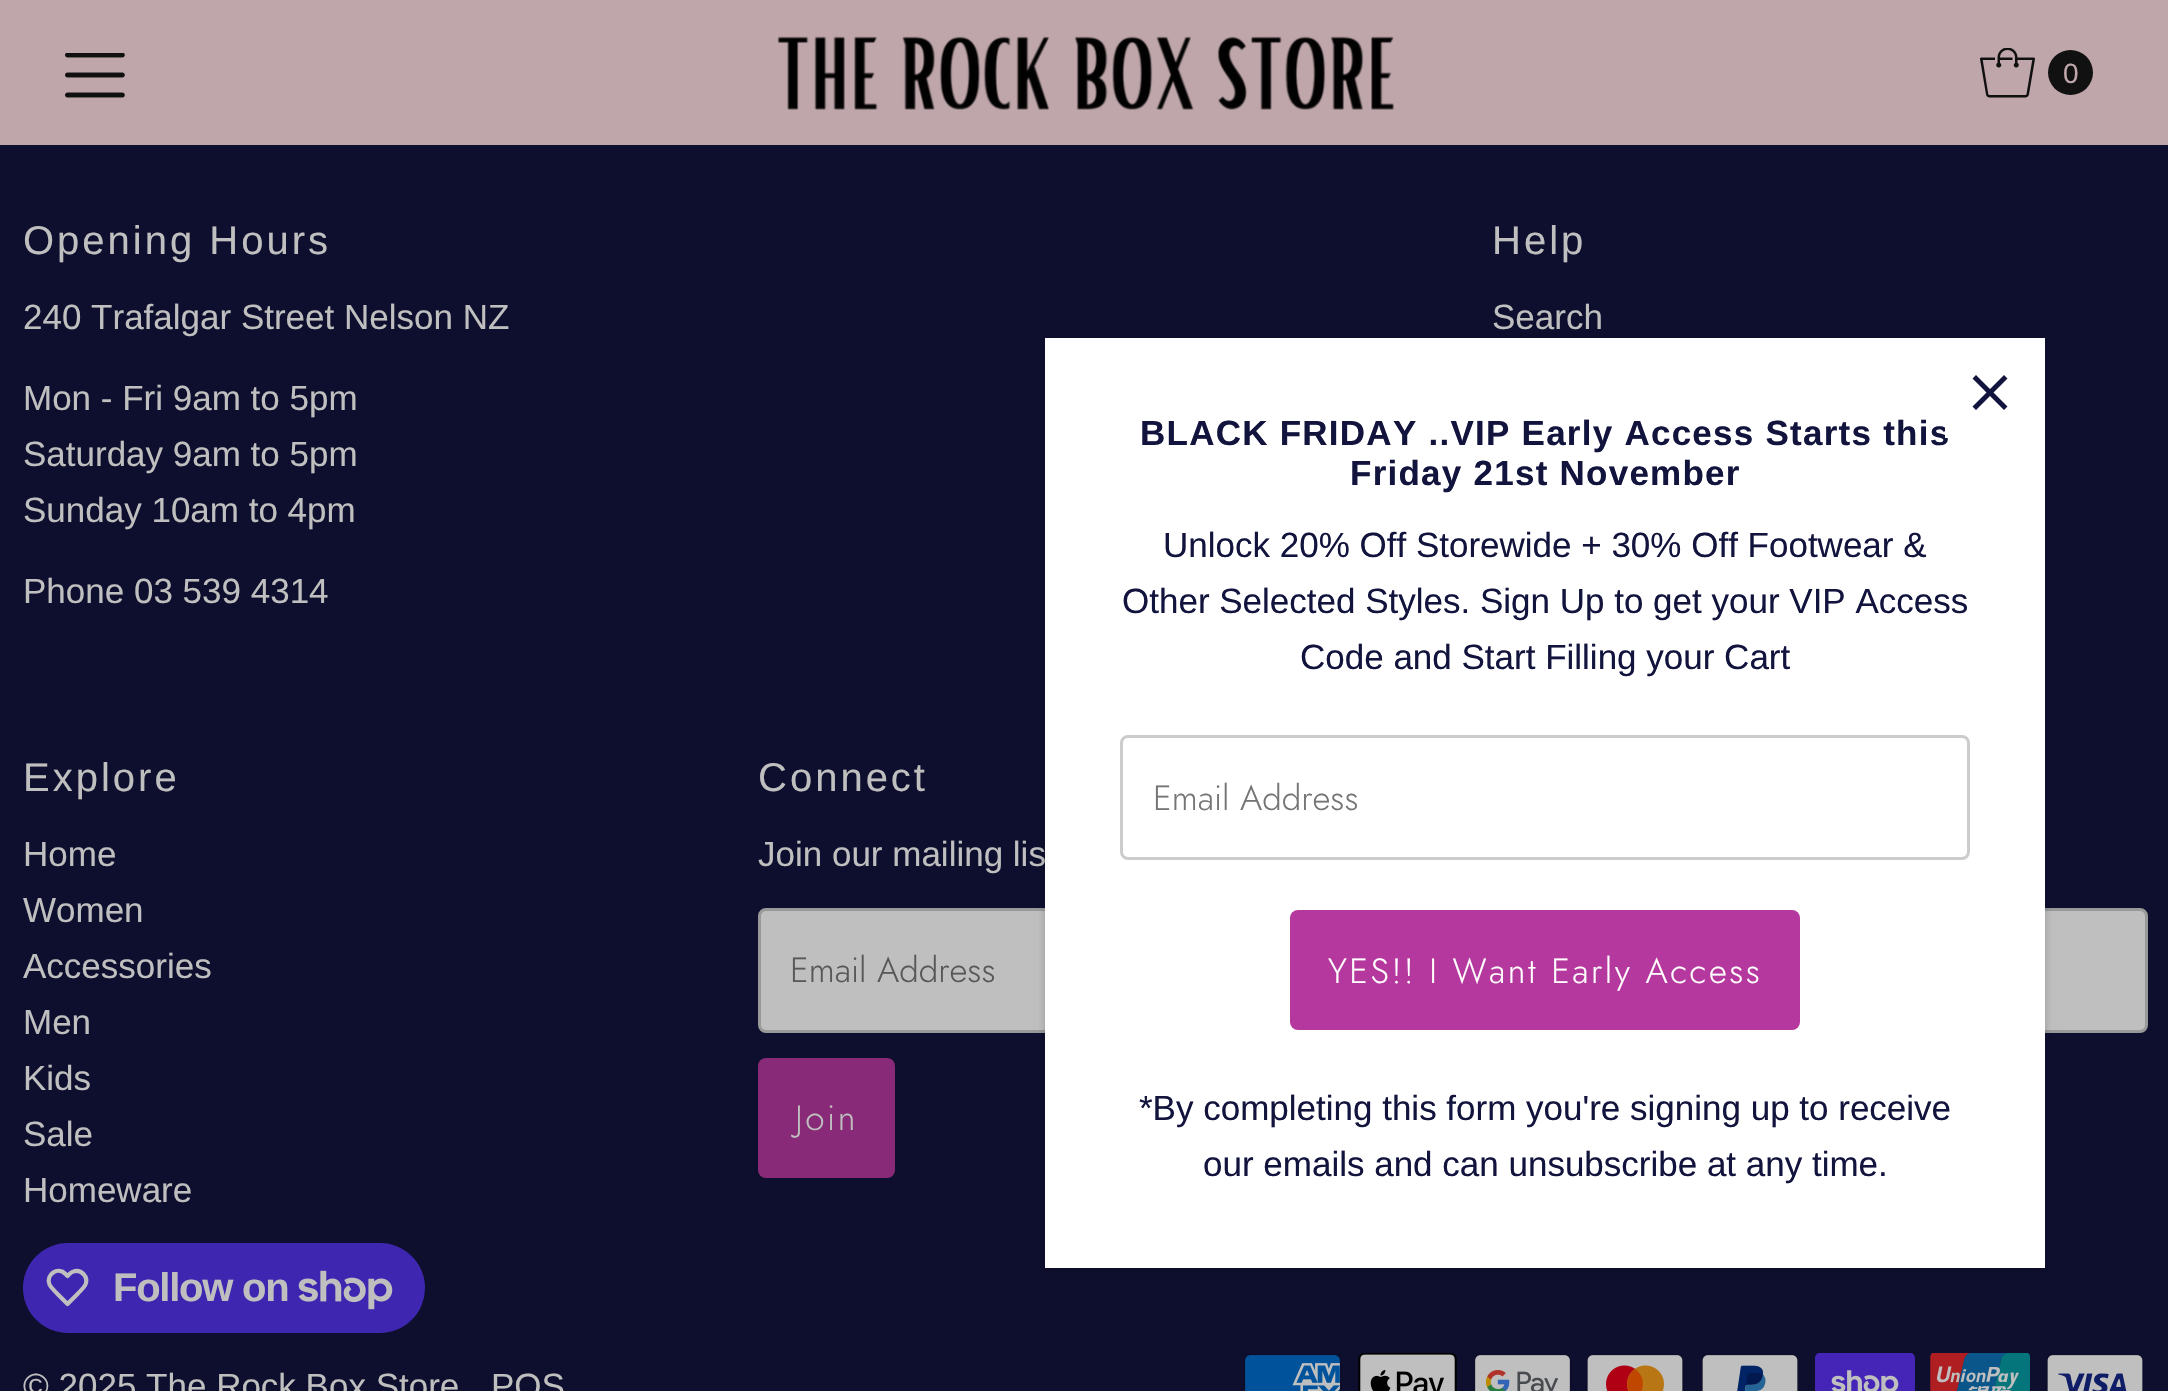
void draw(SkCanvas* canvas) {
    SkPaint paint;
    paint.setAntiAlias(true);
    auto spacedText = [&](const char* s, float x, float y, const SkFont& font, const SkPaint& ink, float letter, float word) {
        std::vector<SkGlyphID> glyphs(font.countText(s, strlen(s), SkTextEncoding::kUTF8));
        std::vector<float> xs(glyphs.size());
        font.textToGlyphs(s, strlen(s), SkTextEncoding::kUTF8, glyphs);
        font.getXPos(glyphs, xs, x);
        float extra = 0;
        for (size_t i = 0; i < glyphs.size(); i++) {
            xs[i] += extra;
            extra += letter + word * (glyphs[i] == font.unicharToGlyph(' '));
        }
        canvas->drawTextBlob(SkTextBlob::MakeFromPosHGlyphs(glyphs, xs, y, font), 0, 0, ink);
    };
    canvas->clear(0xFF0E0F2E);
    paint.setColor(0xFFBFA6AA);
    canvas->drawRect(SkRect::MakeXYWH(0, 0, 2168, 145), paint);
    canvas->drawImageRect(SkImages::DeferredFromEncodedData(SkData::MakeFromFileName("img1.png")), SkRect::MakeXYWH(65, 53, 60, 45), SkSamplingOptions());
    canvas->drawImageRect(SkImages::DeferredFromEncodedData(SkData::MakeFromFileName("img2.png")), SkRect::MakeXYWH(777, 36, 617, 74), SkSamplingOptions());
    canvas->drawImageRect(SkImages::DeferredFromEncodedData(SkData::MakeFromFileName("img3.png")), SkRect::MakeXYWH(1980, 48, 55, 50), SkSamplingOptions());
    paint.setColor(0xFF111111);
    canvas->drawCircle(2070.5f, 72.5f, 22.5f, paint);
    SkFont font1(fontMgr->matchFamilyStyle("Liberation Sans", SkFontStyle::Normal()), 28);
    font1.setSubpixel(true);
    paint.setColor(0xFFBFA6AA);
    canvas->drawString("0", 2063, 83, font1, paint);
    SkFont font2(fontMgr->matchFamilyStyle("Liberation Sans", SkFontStyle::Normal()), 40);
    font2.setSubpixel(true);
    paint.setColor(0xFFBFBFBF);
    spacedText("Opening Hours", 23, 254, font2, paint, 3, 0);
    SkFont font3(fontMgr->matchFamilyStyle("Liberation Sans", SkFontStyle::Normal()), 35);
    font3.setSubpixel(true);
    canvas->drawString("240 Trafalgar Street Nelson NZ", 23, 329, font3, paint);
    canvas->drawString("Mon - Fri 9am to 5pm", 23, 410, font3, paint);
    canvas->drawString("Saturday 9am to 5pm", 23, 466, font3, paint);
    canvas->drawString("Sunday 10am to 4pm", 23, 522, font3, paint);
    canvas->drawString("Phone 03 539 4314", 23, 603, font3, paint);
    spacedText("Help", 1492, 254, font2, paint, 3, 0);
    canvas->drawString("Search", 1492, 329, font3, paint);
    spacedText("Explore", 23, 791, font2, paint, 3, 0);
    canvas->drawString("Home", 23, 866, font3, paint);
    canvas->drawString("Women", 23, 922, font3, paint);
    canvas->drawString("Accessories", 23, 978, font3, paint);
    canvas->drawString("Men", 23, 1034, font3, paint);
    canvas->drawString("Kids", 23, 1090, font3, paint);
    canvas->drawString("Sale", 23, 1146, font3, paint);
    canvas->drawString("Homeware", 23, 1202, font3, paint);
    spacedText("Connect", 758, 791, font2, paint, 3, 0);
    canvas->drawString("Join our mailing lis", 758, 866, font3, paint);
    canvas->drawRoundRect(SkRect::MakeXYWH(759.5f, 909.5f, 1387, 122), 6.5f, 6.5f, paint);
    paint.setStyle(SkPaint::kStroke_Style);
    paint.setStrokeWidth(3);
    paint.setColor(0xFF999999);
    canvas->drawRoundRect(SkRect::MakeXYWH(759.5f, 909.5f, 1387, 122), 6.5f, 6.5f, paint);
    SkFont font4(fontMgr->matchFamilyStyle("Jost", SkFontStyle(300, SkFontStyle::kNormal_Width, SkFontStyle::kUpright_Slant)), 35);
    font4.setSubpixel(true);
    paint.setStyle(SkPaint::kFill_Style);
    paint.setColor(0xFF585858);
    canvas->drawString("Email Address", 790, 982, font4, paint);
    paint.setColor(0xFF882A77);
    canvas->drawRoundRect(SkRect::MakeXYWH(758, 1058, 137, 120), 8, 8, paint);
    paint.setColor(0xFFBFBFBF);
    spacedText("Join", 795, 1130, font4, paint, 2.5f, 0);
    paint.setColor(0xFF3F26B0);
    canvas->drawRoundRect(SkRect::MakeXYWH(23, 1243, 402, 90), 45, 45, paint);
    paint.setStyle(SkPaint::kStroke_Style);
    paint.setStrokeWidth(4.2f);
    paint.setStrokeJoin(SkPaint::kRound_Join);
    paint.setColor(0xFFBFBFBF);
    canvas->drawPath(SkPathBuilder().moveTo(65.5f, 1274).lineTo(67.5f, 1276).cubicTo(69.5f, 1274, 71, 1272, 73.5f, 1271.5f).cubicTo(81.5f, 1269, 88.5f, 1277, 85.5f, 1284.5f).cubicTo(84, 1288, 80.5f, 1290.5f, 78, 1293.5f).lineTo(67.5f, 1304).lineTo(57, 1293.5f).cubicTo(54.5f, 1290.5f, 51, 1288, 49.5f, 1284.5f).cubicTo(45.5f, 1274.5f, 58, 1266, 65.5f, 1274).close().detach(), paint);
    SkFont font5(fontMgr->matchFamilyStyle("Liberation Sans", SkFontStyle::Bold()), 40);
    font5.setSubpixel(true);
    paint.setStyle(SkPaint::kFill_Style);
    spacedText("Follow on", 113, 1301, font5, paint, -1.25f, 0);
    canvas->drawImageRect(SkImages::DeferredFromEncodedData(SkData::MakeFromFileName("img4.png")), SkRect::MakeXYWH(298, 1270, 95, 40), SkSamplingOptions());
    canvas->drawString("© 2025 The Rock Box Store", 23, 1398, font3, paint);
    canvas->drawString("POS", 491, 1398, font3, paint);
    canvas->drawImageRect(SkImages::DeferredFromEncodedData(SkData::MakeFromFileName("img5.png")), SkRect::MakeXYWH(1243, 1353, 99, 38), SkSamplingOptions());
    canvas->drawImageRect(SkImages::DeferredFromEncodedData(SkData::MakeFromFileName("img6.png")), SkRect::MakeXYWH(1358, 1353, 99, 38), SkSamplingOptions());
    canvas->drawImageRect(SkImages::DeferredFromEncodedData(SkData::MakeFromFileName("img7.png")), SkRect::MakeXYWH(1473, 1353, 99, 38), SkSamplingOptions());
    canvas->drawImageRect(SkImages::DeferredFromEncodedData(SkData::MakeFromFileName("img8.png")), SkRect::MakeXYWH(1585, 1353, 100, 38), SkSamplingOptions());
    canvas->drawImageRect(SkImages::DeferredFromEncodedData(SkData::MakeFromFileName("img9.png")), SkRect::MakeXYWH(1700, 1353, 100, 38), SkSamplingOptions());
    canvas->drawImageRect(SkImages::DeferredFromEncodedData(SkData::MakeFromFileName("img10.png")), SkRect::MakeXYWH(1815, 1353, 100, 38), SkSamplingOptions());
    canvas->drawImageRect(SkImages::DeferredFromEncodedData(SkData::MakeFromFileName("img11.png")), SkRect::MakeXYWH(1930, 1353, 100, 38), SkSamplingOptions());
    canvas->drawImageRect(SkImages::DeferredFromEncodedData(SkData::MakeFromFileName("img12.png")), SkRect::MakeXYWH(2045, 1353, 100, 38), SkSamplingOptions());
    paint.setColor(0x33000000);
    paint.setMaskFilter(SkMaskFilter::MakeBlur(kNormal_SkBlurStyle, 4));
    canvas->drawRect(SkRect::MakeXYWH(1045, 340, 1000, 930), paint);
    paint.setMaskFilter(nullptr);
    paint.setColor(0xFFFFFFFF);
    canvas->drawRect(SkRect::MakeXYWH(1045, 338, 1000, 930), paint);
    SkFont font6(fontMgr->matchFamilyStyle("Liberation Sans", SkFontStyle::Bold()), 35);
    font6.setSubpixel(true);
    paint.setColor(0xFF12143D);
    spacedText("BLACK FRIDAY ..VIP Early Access Starts this", 1140, 445, font6, paint, 1.25f, 0);
    paint.setColor(0xFFFFFFFF);
    canvas->drawRect(SkRect::MakeXYWH(1945, 427, 3, 11), paint);
    paint.setColor(0xFF12143D);
    canvas->drawPath(SkPathBuilder().moveTo(2007.5f, 378.5f).lineTo(2004, 375).lineTo(1990, 389).lineTo(1976, 375).lineTo(1972.5f, 378.5f).lineTo(1986.5f, 392.5f).lineTo(1972.5f, 406.5f).lineTo(1976, 410).lineTo(1990, 396).lineTo(2004, 410).lineTo(2007.5f, 406.5f).lineTo(1993.5f, 392.5f).close().detach(), paint);
    spacedText("Friday 21st November", 1350, 485, font6, paint, 1.25f, 0);
    canvas->drawString("Unlock 20% Off Storewide + 30% Off Footwear &", 1163, 557, font3, paint);
    canvas->drawString("Other Selected Styles. Sign Up to get your VIP Access", 1122, 613, font3, paint);
    canvas->drawString("Code and Start Filling your Cart", 1300, 669, font3, paint);
    paint.setStyle(SkPaint::kStroke_Style);
    paint.setStrokeWidth(3);
    paint.setStrokeJoin(SkPaint::kMiter_Join);
    paint.setColor(0xFFCCCCCC);
    canvas->drawRoundRect(SkRect::MakeXYWH(1121.5f, 736.5f, 847, 122), 6.5f, 6.5f, paint);
    paint.setStyle(SkPaint::kFill_Style);
    paint.setColor(0xFF757575);
    canvas->drawString("Email Address", 1153, 810, font4, paint);
    paint.setColor(0xFFB5389E);
    canvas->drawRoundRect(SkRect::MakeXYWH(1290, 910, 510, 120), 8, 8, paint);
    paint.setColor(0xFFFFFFFF);
    spacedText("YES!! I Want Early Access", 1328, 983, font4, paint, 2.5f, 0);
    paint.setColor(0xFF12143D);
    canvas->drawString("*By completing this form you're signing up to receive", 1139, 1120, font3, paint);
    canvas->drawString("our emails and can unsubscribe at any time.", 1203, 1176, font3, paint);
}
